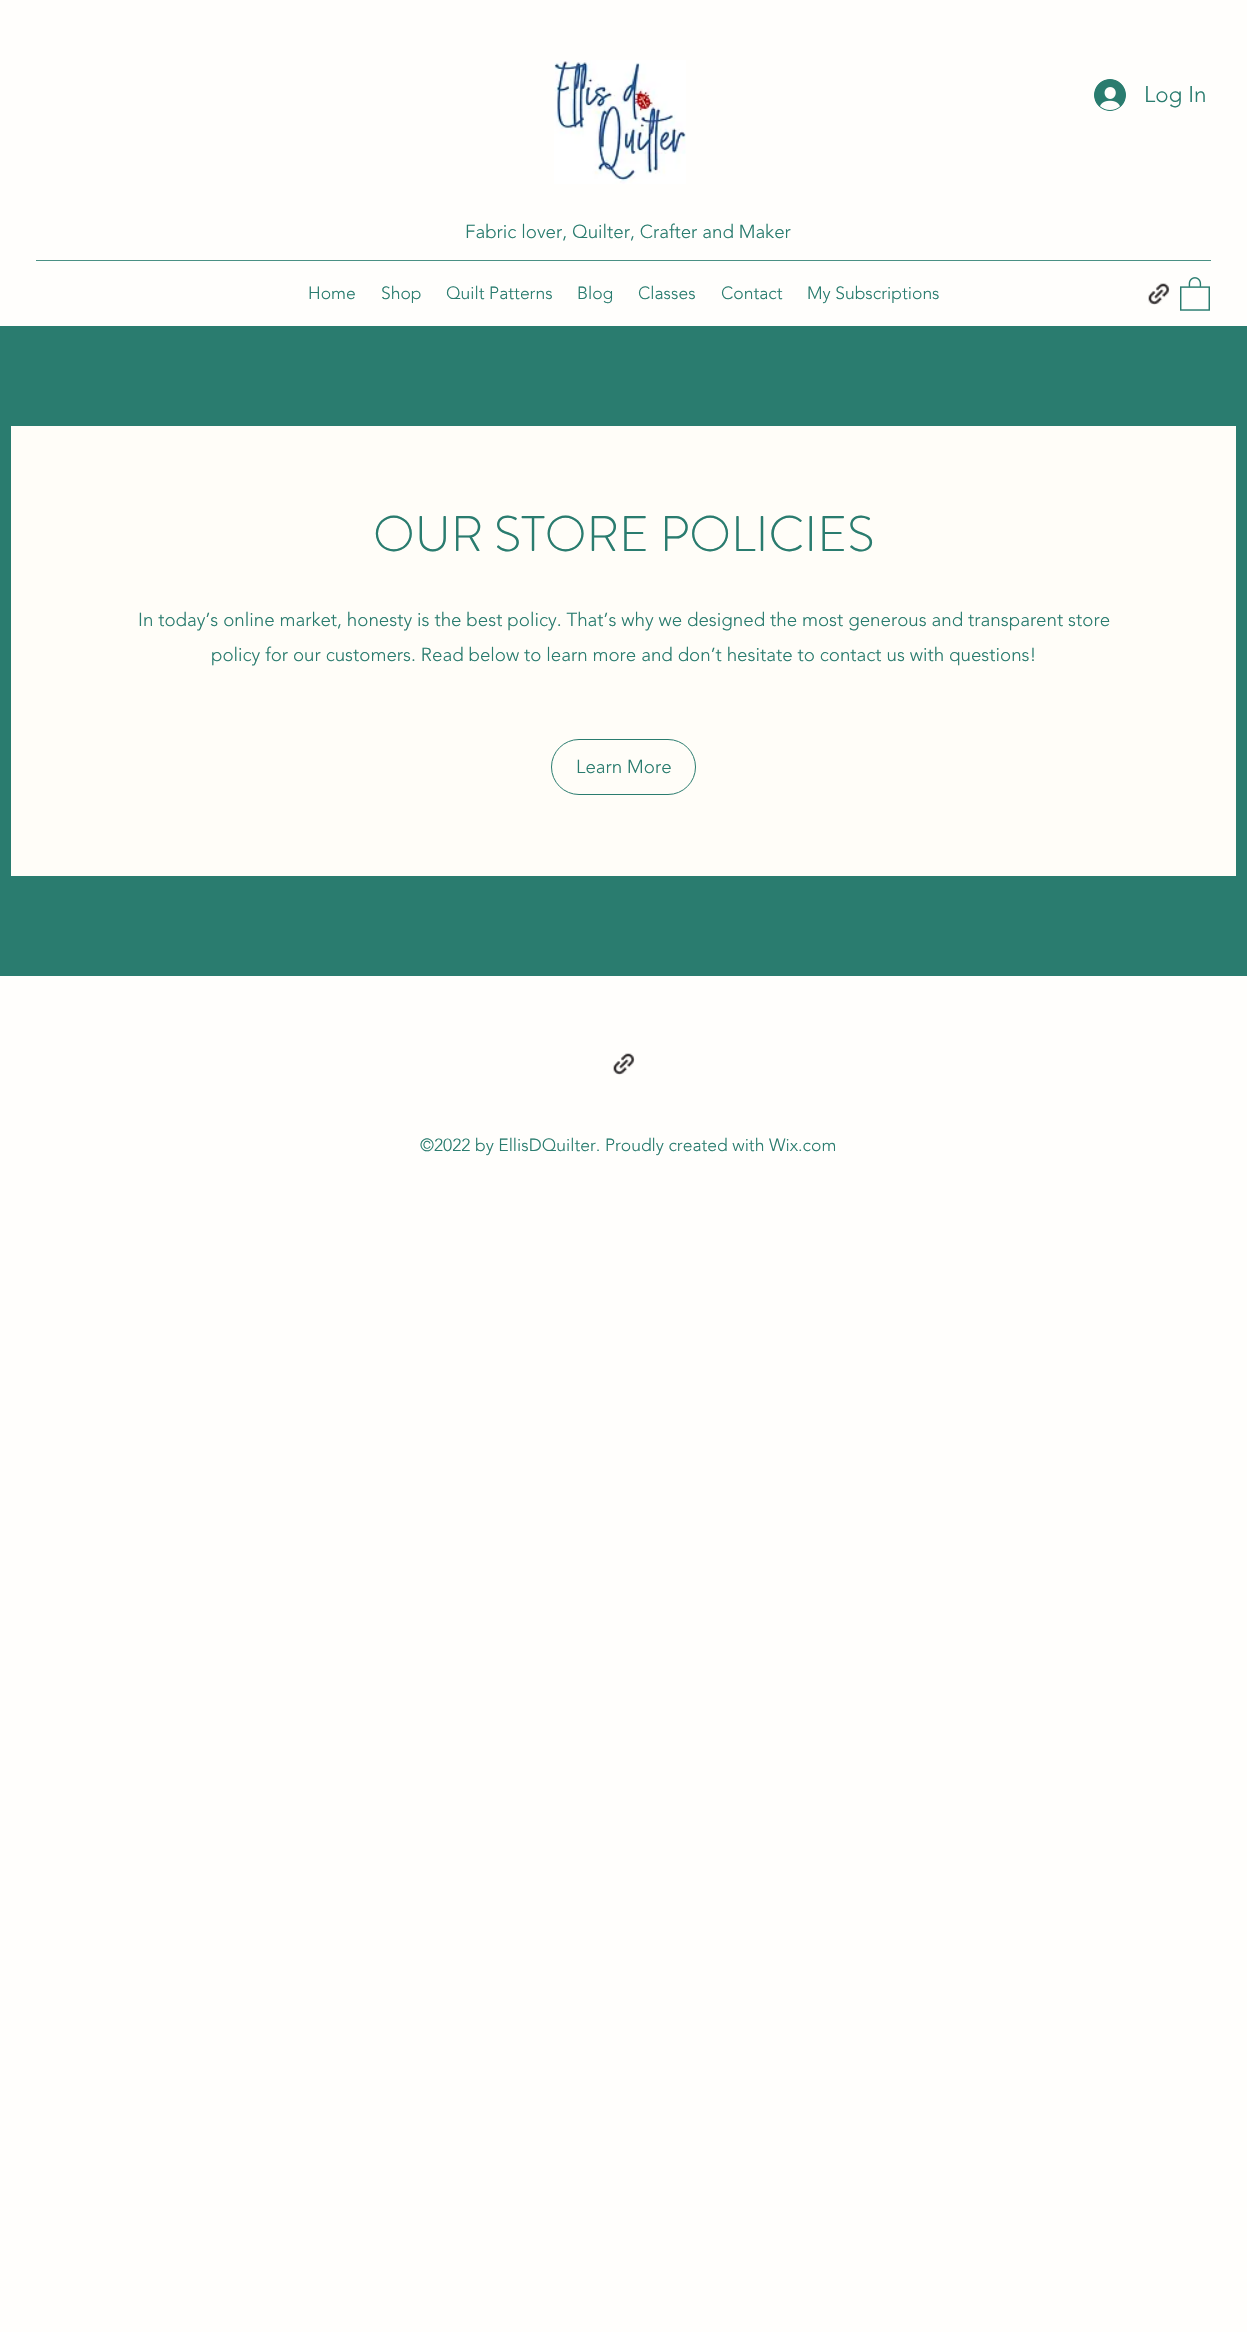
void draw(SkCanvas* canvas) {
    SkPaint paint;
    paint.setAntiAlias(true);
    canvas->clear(0xFFFFFEFC);
    canvas->drawImageRect(SkImages::DeferredFromEncodedData(SkData::MakeFromFileName("img1.png")), SkRect::MakeXYWH(554, 60, 132, 124), SkSamplingOptions());
    canvas->drawImageRect(SkImages::DeferredFromEncodedData(SkData::MakeFromFileName("img2.png")), SkRect::MakeXYWH(1094, 79, 32, 32), SkSamplingOptions());
    SkFont font1(fontMgr->matchFamilyStyle("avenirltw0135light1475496", SkFontStyle(300, SkFontStyle::kNormal_Width, SkFontStyle::kUpright_Slant)), 22.5f);
    font1.setSubpixel(true);
    paint.setColor(0xFF2A7C6F);
    canvas->drawString("Log In", 1144, 102, font1, paint);
    SkFont font2(fontMgr->matchFamilyStyle("avenirltw0135light1475496", SkFontStyle(300, SkFontStyle::kNormal_Width, SkFontStyle::kUpright_Slant)), 18.75f);
    font2.setSubpixel(true);
    canvas->drawString("Fabric lover, Quilter, Crafter and Maker", 465, 238, font2, paint);
    paint.setColor(0xFF4A9084);
    canvas->drawRect(SkRect::MakeXYWH(36, 260, 1175, 1), paint);
    SkFont font3(fontMgr->matchFamilyStyle("avenirltw0135light1475496", SkFontStyle(300, SkFontStyle::kNormal_Width, SkFontStyle::kUpright_Slant)), 17.5f);
    font3.setSubpixel(true);
    paint.setColor(0xFF2A7C6F);
    canvas->drawString("Home", 308, 299, font3, paint);
    canvas->drawString("Shop", 381, 299, font3, paint);
    canvas->drawString("Quilt Patterns", 446, 299, font3, paint);
    canvas->drawString("Blog", 577, 299, font3, paint);
    canvas->drawString("Classes", 638, 299, font3, paint);
    canvas->drawString("Contact", 721, 299, font3, paint);
    canvas->drawString("My Subscriptions", 807, 299, font3, paint);
    canvas->drawImageRect(SkImages::DeferredFromEncodedData(SkData::MakeFromFileName("img3.png")), SkRect::MakeXYWH(1148, 283, 22, 22), SkSamplingOptions());
    canvas->drawImageRect(SkImages::DeferredFromEncodedData(SkData::MakeFromFileName("img4.png")), SkRect::MakeXYWH(1180, 277, 30, 34), SkSamplingOptions());
    canvas->drawRect(SkRect::MakeXYWH(0, 326, 1247, 650), paint);
    paint.setColor(0xFFFFFDF8);
    canvas->drawRect(SkRect::MakeXYWH(11, 426, 1225, 450), paint);
    SkFont font4(fontMgr->matchFamilyStyle("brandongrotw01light", SkFontStyle(300, SkFontStyle::kNormal_Width, SkFontStyle::kUpright_Slant)), 50);
    font4.setSubpixel(true);
    paint.setColor(0xFF2A7C6F);
    canvas->drawString("OUR STORE POLICIES", 373, 551, font4, paint);
    canvas->drawString("In today’s online market, honesty is the best policy. That’s why we designed the most generous and transparent store", 138, 626, font2, paint);
    canvas->drawString("policy for our customers. Read below to learn more and don’t hesitate to contact us with questions!", 211, 661, font2, paint);
    paint.setStyle(SkPaint::kStroke_Style);
    paint.setStrokeWidth(1);
    canvas->drawRoundRect(SkRect::MakeXYWH(551.5f, 739.5f, 144, 55), 27.5f, 27.5f, paint);
    paint.setStyle(SkPaint::kFill_Style);
    canvas->drawString("Learn More", 576, 773, font2, paint);
    canvas->drawImageRect(SkImages::DeferredFromEncodedData(SkData::MakeFromFileName("img5.png")), SkRect::MakeXYWH(613, 1053, 22, 22), SkSamplingOptions());
    canvas->drawString("©2022 by EllisDQuilter. Proudly created with Wix.com", 420, 1151, font3, paint);
}
